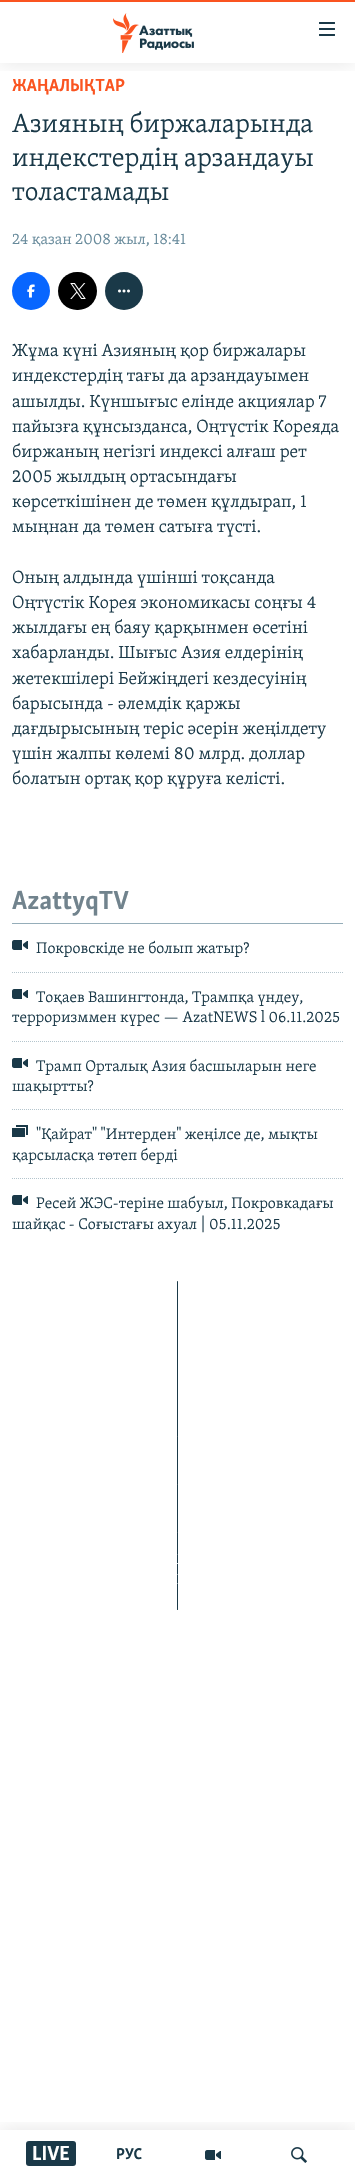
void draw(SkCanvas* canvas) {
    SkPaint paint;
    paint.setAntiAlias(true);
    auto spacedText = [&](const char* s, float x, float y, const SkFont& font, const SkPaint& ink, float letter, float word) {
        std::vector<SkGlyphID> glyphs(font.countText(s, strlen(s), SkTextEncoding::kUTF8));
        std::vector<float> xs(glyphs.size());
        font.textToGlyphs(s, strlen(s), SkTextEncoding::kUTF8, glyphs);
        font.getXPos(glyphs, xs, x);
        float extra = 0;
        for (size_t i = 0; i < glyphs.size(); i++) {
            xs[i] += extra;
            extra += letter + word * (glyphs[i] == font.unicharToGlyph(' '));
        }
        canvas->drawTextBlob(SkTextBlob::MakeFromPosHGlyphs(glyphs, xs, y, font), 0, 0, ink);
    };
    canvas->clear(0xFFFFFFFF);
    SkFont font1(fontMgr->matchFamilyStyle("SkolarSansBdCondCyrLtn", SkFontStyle::Bold()), 18);
    font1.setSubpixel(true);
    paint.setColor(0xFFFA5420);
    canvas->drawString("ЖАҢАЛЫҚТАР", 12, 91, font1, paint);
    SkFont font2(fontMgr->matchFamilyStyle("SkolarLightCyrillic", SkFontStyle(300, SkFontStyle::kNormal_Width, SkFontStyle::kUpright_Slant)), 27);
    font2.setSubpixel(true);
    paint.setColor(0xFF1A3948);
    canvas->drawString("Азияның биржаларында", 12, 132, font2, paint);
    canvas->drawString("индекстердің арзандауы", 12, 166, font2, paint);
    canvas->drawString("толастамады", 12, 200, font2, paint);
    SkFont font3(fontMgr->matchFamilyStyle("SkolarLightCyrillic", SkFontStyle(300, SkFontStyle::kNormal_Width, SkFontStyle::kUpright_Slant)), 15.75f);
    font3.setSubpixel(true);
    paint.setColor(0xFF678A9B);
    canvas->drawString("24 қазан 2008 жыл, 18:41", 12, 244, font3, paint);
    paint.setColor(0xFF0866FF);
    canvas->drawCircle(31, 291, 19, paint);
    canvas->drawImageRect(SkImages::DeferredFromEncodedData(SkData::MakeFromFileName("img1.png")), SkRect::MakeXYWH(27, 284, 8, 14), SkSamplingOptions());
    paint.setColor(0xFF000000);
    canvas->drawRoundRect(SkRect::MakeXYWH(58, 272, 39, 38), 19, 19, paint);
    canvas->drawImageRect(SkImages::DeferredFromEncodedData(SkData::MakeFromFileName("img2.png")), SkRect::MakeXYWH(70, 283, 16, 16), SkSamplingOptions());
    paint.setColor(0xFF1A3948);
    canvas->drawCircle(124, 291, 19, paint);
    canvas->drawImageRect(SkImages::DeferredFromEncodedData(SkData::MakeFromFileName("img3.png")), SkRect::MakeXYWH(118, 289, 12, 4), SkSamplingOptions());
    SkFont font4(fontMgr->matchFamilyStyle("SkolarLightCyrillic", SkFontStyle(300, SkFontStyle::kNormal_Width, SkFontStyle::kUpright_Slant)), 18);
    font4.setSubpixel(true);
    canvas->drawString("Жұма күні Азияның қор биржалары", 12, 356, font4, paint);
    canvas->drawString("индекстердің тағы да арзандауымен", 12, 381, font4, paint);
    canvas->drawString("ашылды. Күншығыс елінде акциялар 7", 12, 407, font4, paint);
    canvas->drawString("пайызға құнсызданса, Оңтүстік Кореяда", 12, 432, font4, paint);
    canvas->drawString("биржаның негізгі индексі алғаш рет", 12, 457, font4, paint);
    canvas->drawString("2005 жылдың ортасындағы", 12, 482, font4, paint);
    canvas->drawString("көрсеткішінен де төмен құлдырап, 1", 12, 507, font4, paint);
    canvas->drawString("мыңнан да төмен сатыға түсті.", 12, 532, font4, paint);
    canvas->drawString("Оның алдында үшінші тоқсанда", 12, 583, font4, paint);
    canvas->drawString("Оңтүстік Корея экономикасы соңғы 4", 12, 608, font4, paint);
    canvas->drawString("жылдағы ең баяу қарқынмен өсетіні", 12, 633, font4, paint);
    canvas->drawString("хабарланды. Шығыс Азия елдерінің", 12, 658, font4, paint);
    canvas->drawString("жетекшілері Бейжіңдегі кездесуінің", 12, 684, font4, paint);
    canvas->drawString("барысында - әлемдік қаржы", 12, 709, font4, paint);
    canvas->drawString("дағдырысының теріс әсерін жеңілдету", 12, 734, font4, paint);
    canvas->drawString("үшін жалпы көлемі 80 млрд. доллар", 12, 759, font4, paint);
    canvas->drawString("болатын ортақ қор құруға келісті.", 12, 784, font4, paint);
    paint.setColor(0xFF95ADB9);
    canvas->drawRect(SkRect::MakeXYWH(12, 923, 331, 1), paint);
    SkFont font5(fontMgr->matchFamilyStyle("SkolarSansBdCondCyrLtn", SkFontStyle::Bold()), 27);
    font5.setSubpixel(true);
    paint.setColor(0xFF71838D);
    canvas->drawString("AzattyqTV", 12, 909, font5, paint);
    canvas->drawImageRect(SkImages::DeferredFromEncodedData(SkData::MakeFromFileName("img4.png")), SkRect::MakeXYWH(12, 940, 16, 10), SkSamplingOptions());
    paint.setColor(0xFF1A3948);
    canvas->drawString("Покровскіде не болып жатыр?", 36, 953, font3, paint);
    paint.setStyle(SkPaint::kStroke_Style);
    paint.setStrokeWidth(1);
    paint.setColor(0xFFB4C5CD);
    paint.setPathEffect(SkDashPathEffect::Make({{1, 1}}, 0));
    canvas->drawPath(SkPathBuilder().moveTo(12, 972.5f).lineTo(343, 972.5f).detach(), paint);
    paint.setPathEffect(nullptr);
    canvas->drawImageRect(SkImages::DeferredFromEncodedData(SkData::MakeFromFileName("img4.png")), SkRect::MakeXYWH(12, 989, 16, 10), SkSamplingOptions());
    paint.setStyle(SkPaint::kFill_Style);
    paint.setColor(0xFF1A3948);
    canvas->drawString("Тоқаев Вашингтонда, Трампқа үндеу,", 36, 1002, font3, paint);
    canvas->drawString("терроризммен күрес — AzatNEWS l 06.11.2025", 12, 1022, font3, paint);
    paint.setStyle(SkPaint::kStroke_Style);
    paint.setColor(0xFFB4C5CD);
    paint.setPathEffect(SkDashPathEffect::Make({{1, 1}}, 0));
    canvas->drawPath(SkPathBuilder().moveTo(12, 1041.5f).lineTo(343, 1041.5f).detach(), paint);
    paint.setPathEffect(nullptr);
    canvas->drawImageRect(SkImages::DeferredFromEncodedData(SkData::MakeFromFileName("img4.png")), SkRect::MakeXYWH(12, 1058, 16, 10), SkSamplingOptions());
    paint.setStyle(SkPaint::kFill_Style);
    paint.setColor(0xFF1A3948);
    canvas->drawString("Трамп Орталық Азия басшыларын неге", 36, 1071, font3, paint);
    canvas->drawString("шақыртты?", 12, 1091, font3, paint);
    paint.setStyle(SkPaint::kStroke_Style);
    paint.setColor(0xFFB4C5CD);
    paint.setPathEffect(SkDashPathEffect::Make({{1, 1}}, 0));
    canvas->drawPath(SkPathBuilder().moveTo(12, 1109.5f).lineTo(343, 1109.5f).detach(), paint);
    paint.setPathEffect(nullptr);
    canvas->drawImageRect(SkImages::DeferredFromEncodedData(SkData::MakeFromFileName("img5.png")), SkRect::MakeXYWH(12, 1125, 16, 12), SkSamplingOptions());
    paint.setStyle(SkPaint::kFill_Style);
    paint.setColor(0xFF1A3948);
    canvas->drawString("\"Қайрат\" \"Интерден\" жеңілсе де, мықты", 36, 1139, font3, paint);
    canvas->drawString("қарсыласқа төтеп берді", 12, 1160, font3, paint);
    paint.setStyle(SkPaint::kStroke_Style);
    paint.setColor(0xFFB4C5CD);
    paint.setPathEffect(SkDashPathEffect::Make({{1, 1}}, 0));
    canvas->drawPath(SkPathBuilder().moveTo(12, 1178.5f).lineTo(343, 1178.5f).detach(), paint);
    paint.setPathEffect(nullptr);
    canvas->drawImageRect(SkImages::DeferredFromEncodedData(SkData::MakeFromFileName("img4.png")), SkRect::MakeXYWH(12, 1195, 16, 10), SkSamplingOptions());
    paint.setStyle(SkPaint::kFill_Style);
    paint.setColor(0xFF1A3948);
    canvas->drawString("Ресей ЖЭС-теріне шабуыл, Покровкадағы", 36, 1208, font3, paint);
    canvas->drawString("шайқас - Соғыстағы ахуал | 05.11.2025", 12, 1229, font3, paint);
    canvas->drawRoundRect(SkRect::MakeXYWH(177, 1281, 1, 329), 0.5f, 0.5f, paint);
    paint.setColor(0xFF3E4F57);
    canvas->drawCircle(177.5f, 1532.5f, 0.5f, paint);
    canvas->drawCircle(177.5f, 1436.5f, 0.5f, paint);
    canvas->drawCircle(177.5f, 1484.5f, 0.5f, paint);
    canvas->save();
    canvas->clipPath(SkPathBuilder().moveTo(177.5f, 1281).cubicTo(178, 1281, 178, 1281, 178, 1281.5f).lineTo(178, 1609.5f).cubicTo(178, 1610, 178, 1610, 177.5f, 1610).cubicTo(177, 1610, 177, 1610, 177, 1609.5f).lineTo(177, 1281.5f).cubicTo(177, 1281, 177, 1281, 177.5f, 1281).close().detach(), true);
    SkFont font6(fontMgr->matchFamilyStyle("SkolarLightCyrillic", SkFontStyle(300, SkFontStyle::kNormal_Width, SkFontStyle::kUpright_Slant)), 15);
    font6.setSubpixel(true);
    paint.setColor(0xFFFFFFFF);
    spacedText("Азат Еуропа", 177, 1564, font6, paint, -6.7f, 0);
    spacedText("/ Азаттық радиосы", 183, 1564, font6, paint, -6.7f, 0);
    spacedText("© 2025, Inc. |", 194, 1564, font6, paint, -6.7f, 0);
    spacedText("Барлық құқықтары", 177, 1584, font6, paint, -7.6f, 0);
    spacedText("қорғалған", 183, 1584, font6, paint, -7.6f, 0);
    canvas->restore();
    canvas->save();
    canvas->clipRect(SkRect::MakeXYWH(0, 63, 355, 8));
    paint.setColor(0x1A000000);
    paint.setMaskFilter(SkMaskFilter::MakeBlur(kNormal_SkBlurStyle, 10));
    canvas->drawRect(SkRect::MakeXYWH(0, 0, 355, 63), paint);
    paint.setMaskFilter(nullptr);
    canvas->restore();
    paint.setColor(0xFFFA5420);
    canvas->drawRect(SkRect::MakeXYWH(0, 0, 355, 2), paint);
    canvas->drawImageRect(SkImages::DeferredFromEncodedData(SkData::MakeFromFileName("img6.png")), SkRect::MakeXYWH(113, 13, 81, 40), SkSamplingOptions());
    canvas->drawImageRect(SkImages::DeferredFromEncodedData(SkData::MakeFromFileName("img7.png")), SkRect::MakeXYWH(319, 22, 16, 14), SkSamplingOptions());
    canvas->save();
    canvas->clipRect(SkRect::MakeXYWH(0, 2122, 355, 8));
    paint.setColor(0x1A000000);
    paint.setMaskFilter(SkMaskFilter::MakeBlur(kNormal_SkBlurStyle, 10));
    canvas->drawRect(SkRect::MakeXYWH(0, 2130, 355, 50), paint);
    paint.setMaskFilter(nullptr);
    canvas->restore();
    paint.setColor(0xFF1A3948);
    canvas->drawRoundRect(SkRect::MakeXYWH(26, 2141, 50, 25), 3, 3, paint);
    SkFont font7(fontMgr->matchFamilyStyle("SkolarSansBdCondCyrLtn", SkFontStyle::Bold()), 21);
    font7.setSubpixel(true);
    paint.setColor(0xFFFFFFFF);
    canvas->drawString("LIVE", 32, 2160, font7, paint);
    SkFont font8(fontMgr->matchFamilyStyle("SkolarSansBdCondCyrLtn", SkFontStyle::Bold()), 16);
    font8.setSubpixel(true);
    paint.setColor(0xFF1A3948);
    canvas->drawString("РУС", 116, 2159, font8, paint);
    canvas->drawImageRect(SkImages::DeferredFromEncodedData(SkData::MakeFromFileName("img4.png")), SkRect::MakeXYWH(205, 2150, 16, 10), SkSamplingOptions());
    canvas->drawImageRect(SkImages::DeferredFromEncodedData(SkData::MakeFromFileName("img8.png")), SkRect::MakeXYWH(291, 2147, 16, 16), SkSamplingOptions());
}
